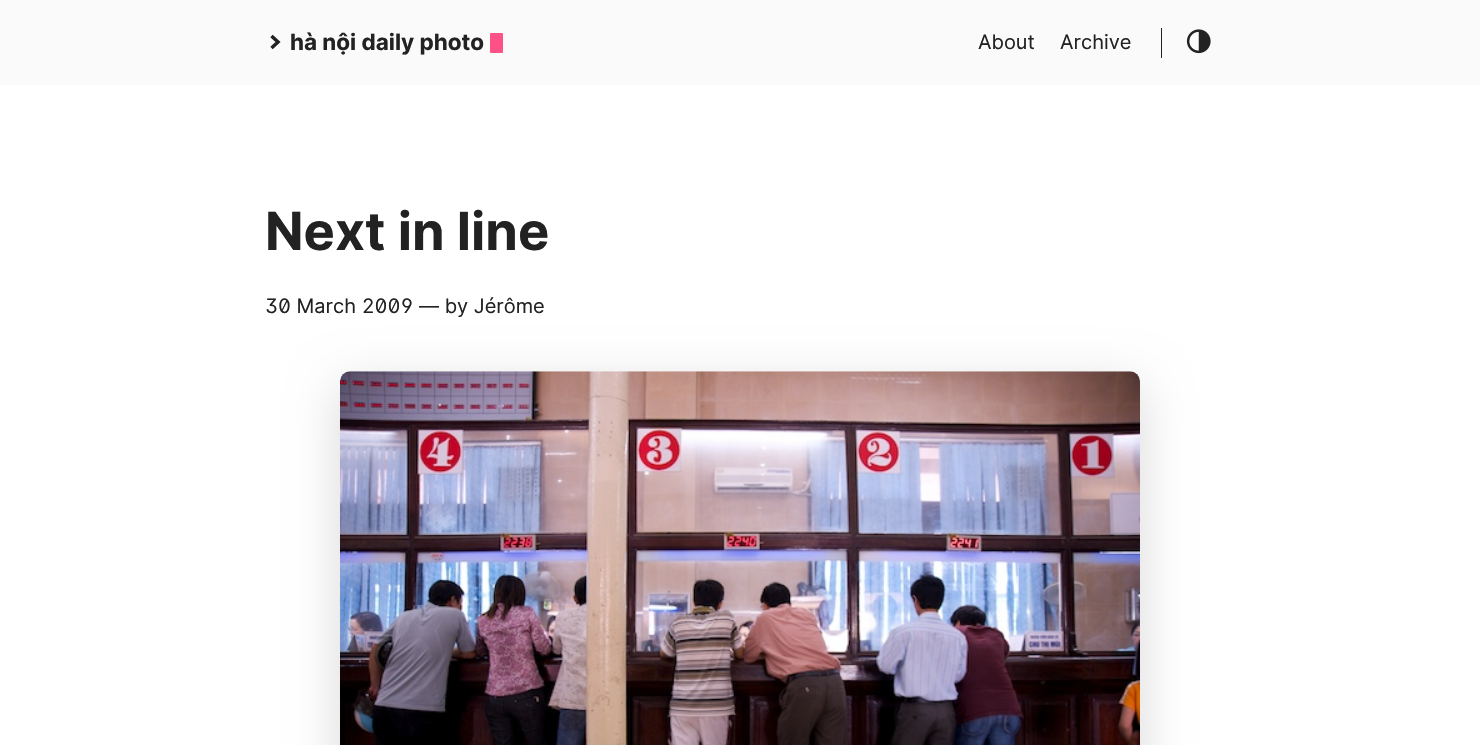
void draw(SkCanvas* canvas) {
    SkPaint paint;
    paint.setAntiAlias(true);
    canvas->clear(0xFFFFFFFF);
    paint.setColor(0xFFFAFAFA);
    canvas->drawRect(SkRect::MakeXYWH(0, 0, 1480, 85), paint);
    paint.setStyle(SkPaint::kStroke_Style);
    paint.setStrokeWidth(3.5f);
    paint.setColor(0xFF222222);
    canvas->drawPath(SkPathBuilder().moveTo(271.5f, 36).lineTo(278, 42).lineTo(271.5f, 48).detach(), paint);
    SkFont font1(fontMgr->matchFamilyStyle("Inter", SkFontStyle::Bold()), 22.5f);
    font1.setSubpixel(true);
    paint.setStyle(SkPaint::kFill_Style);
    canvas->drawString("hà nội daily photo", 290, 50, font1, paint);
    paint.setColor(0xFFFE5186);
    canvas->drawRoundRect(SkRect::MakeXYWH(490, 33, 13, 20), 1, 1, paint);
    paint.setColor(0xFF222222);
    canvas->drawRect(SkRect::MakeXYWH(1161, 28, 1, 30), paint);
    SkFont font2(fontMgr->matchFamilyStyle("Inter", SkFontStyle::Normal()), 20);
    font2.setSubpixel(true);
    canvas->drawString("About", 978, 49, font2, paint);
    canvas->drawString("Archive", 1060, 49, font2, paint);
    canvas->drawImageRect(SkImages::DeferredFromEncodedData(SkData::MakeFromFileName("img1.png")), SkRect::MakeXYWH(1186, 29, 25, 25), SkSamplingOptions());
    SkFont font3(fontMgr->matchFamilyStyle("Inter", SkFontStyle::Bold()), 52.5f);
    font3.setSubpixel(true);
    canvas->drawString("Next in line", 265, 250, font3, paint);
    paint.setColor(0x26000000);
    paint.setMaskFilter(SkMaskFilter::MakeBlur(kNormal_SkBlurStyle, 25));
    canvas->drawRoundRect(SkRect::MakeXYWH(340, 386, 800, 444), 10, 10, paint);
    paint.setMaskFilter(nullptr);
    SkFont font4(fontMgr->matchFamilyStyle("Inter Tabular", SkFontStyle::Normal()), 20);
    font4.setSubpixel(true);
    paint.setColor(0xFF222222);
    canvas->drawString("30 March 2009", 265, 313, font4, paint);
    canvas->drawString("— by Jérôme", 419, 313, font2, paint);
    canvas->drawImageRect(SkImages::DeferredFromEncodedData(SkData::MakeFromFileName("img2.png")), SkRect::MakeXYWH(340, 371, 800, 374), SkSamplingOptions());
}
